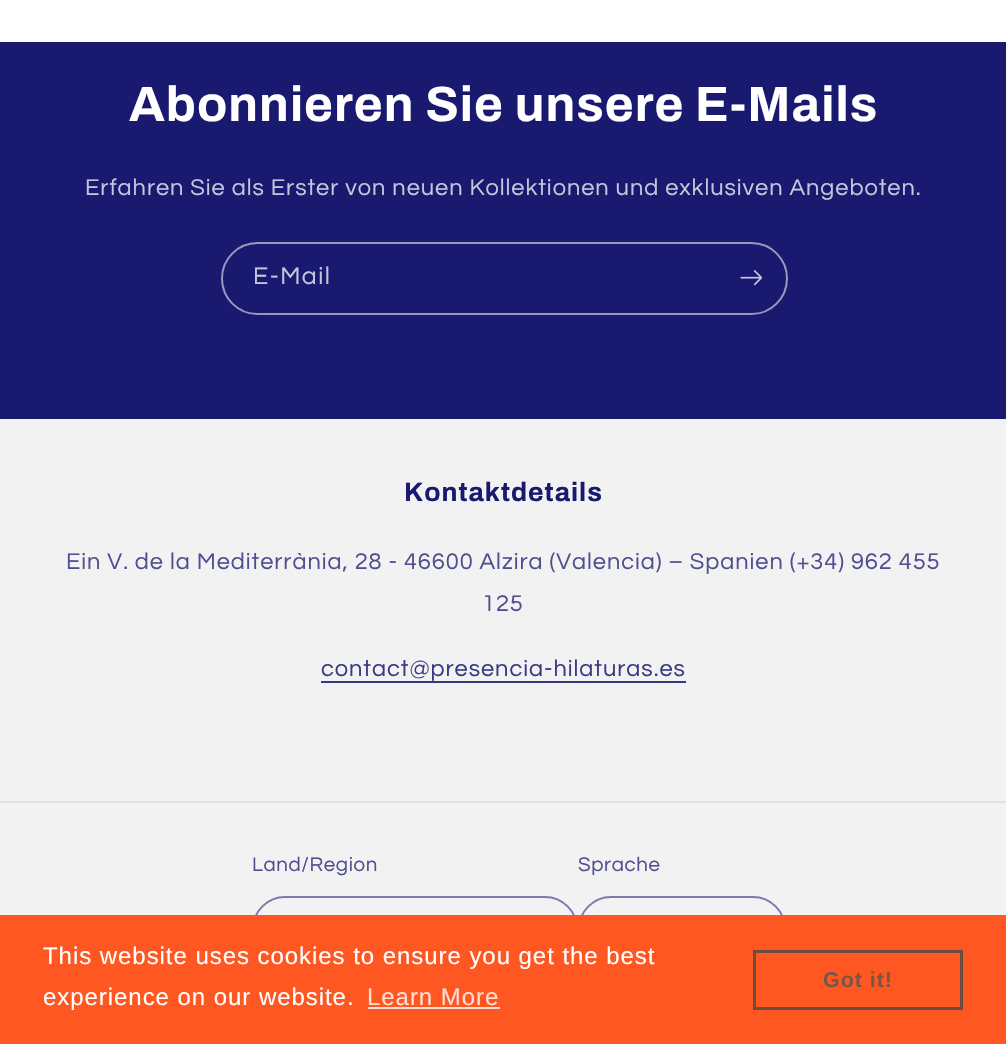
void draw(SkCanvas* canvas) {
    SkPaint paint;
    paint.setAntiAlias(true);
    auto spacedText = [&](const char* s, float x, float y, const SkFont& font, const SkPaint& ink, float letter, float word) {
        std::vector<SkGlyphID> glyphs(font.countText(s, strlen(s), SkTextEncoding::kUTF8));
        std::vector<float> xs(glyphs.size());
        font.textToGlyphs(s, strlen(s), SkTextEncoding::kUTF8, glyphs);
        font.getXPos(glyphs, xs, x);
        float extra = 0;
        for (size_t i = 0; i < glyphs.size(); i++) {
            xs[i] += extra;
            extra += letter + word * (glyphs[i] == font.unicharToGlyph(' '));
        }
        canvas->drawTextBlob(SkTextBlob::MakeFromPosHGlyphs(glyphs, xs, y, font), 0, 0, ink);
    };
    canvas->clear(0xFFFFFFFF);
    paint.setColor(0xFF191970);
    canvas->drawRect(SkRect::MakeXYWH(0, 42, 1006, 377), paint);
    SkFont font1(fontMgr->matchFamilyStyle("Archivo", SkFontStyle::Bold()), 49.5f);
    font1.setSubpixel(true);
    paint.setColor(0xFFFFFFFF);
    spacedText("Abonnieren Sie unsere E-Mails", 129, 121, font1, paint, 1, 0);
    SkFont font2(fontMgr->matchFamilyStyle("Questrial", SkFontStyle::Normal()), 23.6f);
    font2.setSubpixel(true);
    paint.setColor(0xFFC6C6DB);
    spacedText("Erfahren Sie als Erster von neuen Kollektionen und exklusiven Angeboten.", 85, 195, font2, paint, 0.95f, 0);
    paint.setStyle(SkPaint::kStroke_Style);
    paint.setStrokeWidth(2);
    paint.setColor(0xFF9898BF);
    canvas->drawRoundRect(SkRect::MakeXYWH(222, 243, 565, 71), 35.5f, 35.5f, paint);
    SkFont font3(fontMgr->matchFamilyStyle("Questrial", SkFontStyle::Normal()), 25);
    font3.setSubpixel(true);
    paint.setStyle(SkPaint::kFill_Style);
    paint.setColor(0xFFC6C6DB);
    spacedText("E-Mail", 253, 284, font3, paint, 1.5f, 0);
    canvas->drawImageRect(SkImages::DeferredFromEncodedData(SkData::MakeFromFileName("img1.png")), SkRect::MakeXYWH(740, 270, 22, 16), SkSamplingOptions());
    paint.setColor(0xFFF2F2F2);
    canvas->drawRect(SkRect::MakeXYWH(0, 419, 1006, 496), paint);
    SkFont font4(fontMgr->matchFamilyStyle("Archivo", SkFontStyle::Bold()), 26.5f);
    font4.setSubpixel(true);
    paint.setColor(0xFF191970);
    spacedText("Kontaktdetails", 404, 501, font4, paint, 1, 0);
    paint.setColor(0xFF4F4F91);
    spacedText("Ein V. de la Mediterrània, 28 - 46600 Alzira (Valencia) – Spanien (+34) 962 455", 66, 569, font2, paint, 0.95f, 0);
    spacedText("125", 482, 611, font2, paint, 0.95f, 0);
    paint.setColor(0xFF3A3A84);
    spacedText("contact@presencia-hilaturas.es", 321, 676, font2, paint, 0.95f, 0);
    canvas->drawRect(SkRect::MakeXYWH(321, 681, 365, 2), paint);
    paint.setColor(0xFFE1E1E8);
    canvas->drawRect(SkRect::MakeXYWH(0, 801, 1006, 2), paint);
    SkFont font5(fontMgr->matchFamilyStyle("Questrial", SkFontStyle::Normal()), 20.5f);
    font5.setSubpixel(true);
    paint.setColor(0xFF4F4F91);
    spacedText("Land/Region", 252, 871, font5, paint, 0.6f, 0);
    paint.setStyle(SkPaint::kStroke_Style);
    paint.setColor(0xFF7B7BAB);
    canvas->drawRoundRect(SkRect::MakeXYWH(253, 897, 324, 64), 32, 32, paint);
    paint.setStyle(SkPaint::kFill_Style);
    paint.setColor(0xFF4F4F91);
    spacedText("Sprache", 578, 871, font5, paint, 0.6f, 0);
    paint.setStyle(SkPaint::kStroke_Style);
    paint.setColor(0xFF7B7BAB);
    canvas->drawRoundRect(SkRect::MakeXYWH(579, 897, 206, 64), 32, 32, paint);
    paint.setStyle(SkPaint::kFill_Style);
    paint.setColor(0xFFFF5722);
    canvas->drawRect(SkRect::MakeXYWH(0, 915, 1006, 129), paint);
    SkFont font6(fontMgr->matchFamilyStyle("Liberation Sans", SkFontStyle::Normal()), 24);
    font6.setSubpixel(true);
    paint.setColor(0xFFFFFFFF);
    spacedText("This website uses cookies to ensure you get the best", 43, 964, font6, paint, 0.95f, 0);
    spacedText("experience on our website.", 43, 1005, font6, paint, 0.95f, 0);
    paint.setColor(0xFFFFDDD3);
    spacedText("Learn More", 367, 1005, font6, paint, 0.95f, 0);
    canvas->drawRect(SkRect::MakeXYWH(368, 1007, 132, 2), paint);
    paint.setStyle(SkPaint::kStroke_Style);
    paint.setStrokeWidth(3);
    paint.setColor(0xFF6D4C41);
    canvas->drawRect(SkRect::MakeXYWH(754.5f, 951.5f, 207, 57), paint);
    SkFont font7(fontMgr->matchFamilyStyle("Liberation Sans", SkFontStyle::Bold()), 21.5f);
    font7.setSubpixel(true);
    paint.setStyle(SkPaint::kFill_Style);
    paint.setColor(0xFF795548);
    spacedText("Got it!", 823, 987, font7, paint, 0.95f, 0);
}
